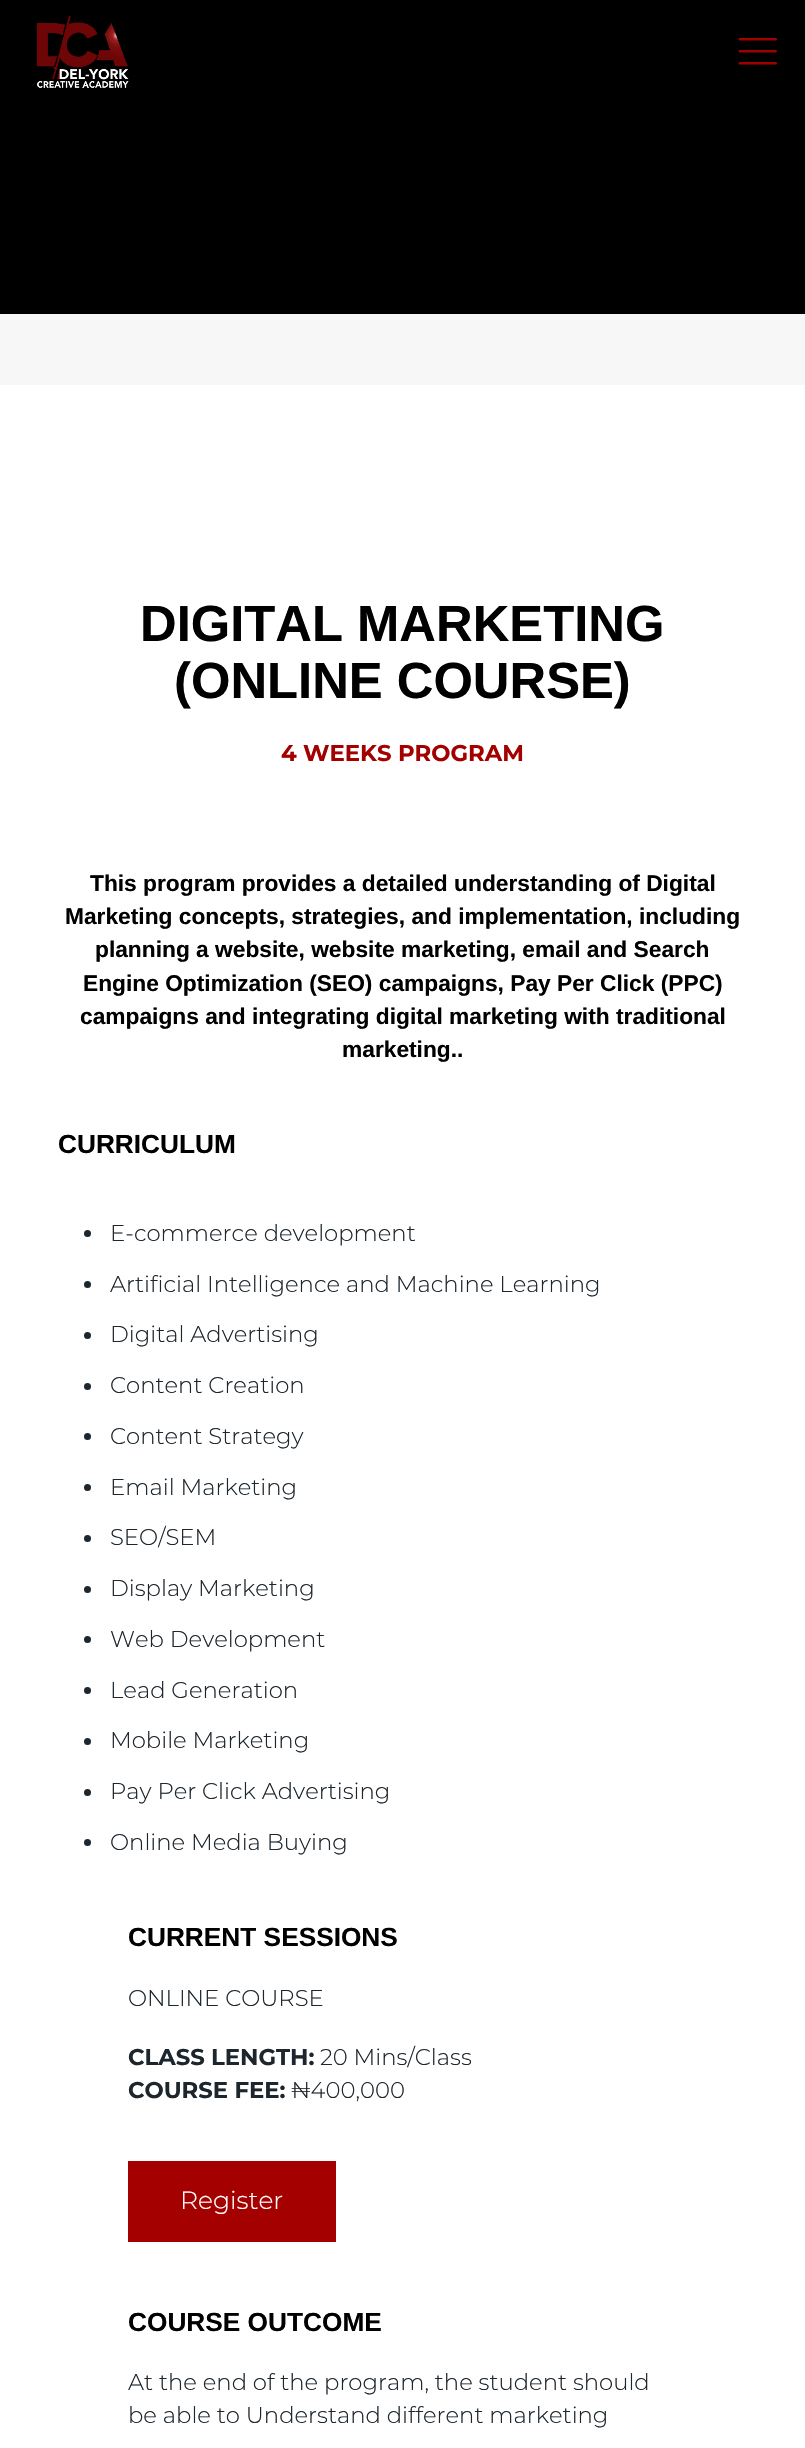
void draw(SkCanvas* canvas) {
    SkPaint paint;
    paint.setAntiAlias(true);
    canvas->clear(0xFF000000);
    canvas->drawImageRect(SkImages::DeferredFromEncodedData(SkData::MakeFromFileName("img1.png")), SkRect::MakeXYWH(36, 16, 93, 72), SkSamplingOptions());
    canvas->drawImageRect(SkImages::DeferredFromEncodedData(SkData::MakeFromFileName("img2.png")), SkRect::MakeXYWH(738, 38, 39, 27), SkSamplingOptions());
    paint.setColor(0xFFF7F7F7);
    canvas->drawRect(SkRect::MakeXYWH(0, 314, 805, 71), paint);
    paint.setColor(0xFFFFFFFF);
    canvas->drawRect(SkRect::MakeXYWH(0, 385, 805, 2063), paint);
    SkFont font1(fontMgr->matchFamilyStyle("Liberation Sans", SkFontStyle::Bold()), 50.75f);
    font1.setSubpixel(true);
    paint.setColor(0xFF000000);
    canvas->drawString("DIGITAL MARKETING", 140, 641, font1, paint);
    canvas->drawString("(ONLINE COURSE)", 174, 698, font1, paint);
    SkFont font2(fontMgr->matchFamilyStyle("Montserrat", SkFontStyle::Bold()), 22.75f);
    font2.setSubpixel(true);
    paint.setColor(0xFFA40000);
    canvas->drawString("4 WEEKS PROGRAM", 281, 761, font2, paint);
    SkFont font3(fontMgr->matchFamilyStyle("Liberation Sans", SkFontStyle::Bold()), 22.75f);
    font3.setSubpixel(true);
    paint.setColor(0xFF000000);
    canvas->drawString("This program provides a detailed understanding of Digital", 90, 891, font3, paint);
    canvas->drawString("Marketing concepts, strategies, and implementation, including", 65, 924, font3, paint);
    canvas->drawString("planning a website, website marketing, email and Search", 95, 957, font3, paint);
    canvas->drawString("Engine Optimization (SEO) campaigns, Pay Per Click (PPC)", 83, 991, font3, paint);
    canvas->drawString("campaigns and integrating digital marketing with traditional", 80, 1024, font3, paint);
    canvas->drawString("marketing..", 342, 1057, font3, paint);
    SkFont font4(fontMgr->matchFamilyStyle("Liberation Sans", SkFontStyle::Bold()), 26.25f);
    font4.setSubpixel(true);
    canvas->drawString("CURRICULUM", 58, 1153, font4, paint);
    paint.setColor(0xFF1D262D);
    canvas->drawCircle(87.5f, 1233.5f, 3.5f, paint);
    SkFont font5(fontMgr->matchFamilyStyle("Montserrat", SkFontStyle(300, SkFontStyle::kNormal_Width, SkFontStyle::kUpright_Slant)), 22.75f);
    font5.setSubpixel(true);
    canvas->drawString("E-commerce development", 110, 1241, font5, paint);
    canvas->drawCircle(87.5f, 1284.5f, 3.5f, paint);
    canvas->drawString("Artificial Intelligence and Machine Learning", 110, 1292, font5, paint);
    canvas->drawCircle(87.5f, 1335.5f, 3.5f, paint);
    canvas->drawString("Digital Advertising", 110, 1342, font5, paint);
    canvas->drawCircle(87.5f, 1386.5f, 3.5f, paint);
    canvas->drawString("Content Creation", 110, 1393, font5, paint);
    canvas->drawCircle(87.5f, 1436.5f, 3.5f, paint);
    canvas->drawString("Content Strategy", 110, 1444, font5, paint);
    canvas->drawCircle(87.5f, 1487.5f, 3.5f, paint);
    canvas->drawString("Email Marketing", 110, 1495, font5, paint);
    canvas->drawCircle(87.5f, 1538.5f, 3.5f, paint);
    canvas->drawString("SEO/SEM", 110, 1545, font5, paint);
    canvas->drawCircle(87.5f, 1589.5f, 3.5f, paint);
    canvas->drawString("Display Marketing", 110, 1596, font5, paint);
    canvas->drawCircle(87.5f, 1639.5f, 3.5f, paint);
    canvas->drawString("Web Development", 110, 1647, font5, paint);
    canvas->drawCircle(87.5f, 1690.5f, 3.5f, paint);
    canvas->drawString("Lead Generation", 110, 1698, font5, paint);
    canvas->drawCircle(87.5f, 1741.5f, 3.5f, paint);
    canvas->drawString("Mobile Marketing", 110, 1748, font5, paint);
    canvas->drawCircle(87.5f, 1792.5f, 3.5f, paint);
    canvas->drawString("Pay Per Click Advertising", 110, 1799, font5, paint);
    canvas->drawCircle(87.5f, 1842.5f, 3.5f, paint);
    canvas->drawString("Online Media Buying", 110, 1850, font5, paint);
    paint.setColor(0xFF000000);
    canvas->drawString("CURRENT SESSIONS", 128, 1946, font4, paint);
    paint.setColor(0xFF1D262D);
    canvas->drawString("ONLINE COURSE", 128, 2006, font5, paint);
    canvas->drawString("CLASS LENGTH:", 128, 2065, font2, paint);
    canvas->drawString("20 Mins/Class", 320, 2065, font5, paint);
    canvas->drawString("COURSE FEE:", 128, 2098, font2, paint);
    canvas->drawString("₦400,000", 291, 2098, font5, paint);
    paint.setColor(0xFFA40000);
    canvas->drawRect(SkRect::MakeXYWH(128, 2161, 208, 81), paint);
    SkFont font6(fontMgr->matchFamilyStyle("Montserrat", SkFontStyle(300, SkFontStyle::kNormal_Width, SkFontStyle::kUpright_Slant)), 25);
    font6.setSubpixel(true);
    paint.setColor(0xFFFFFFFF);
    canvas->drawString("Register", 180, 2209, font6, paint);
    paint.setColor(0xFF000000);
    canvas->drawString("COURSE OUTCOME", 128, 2331, font4, paint);
    paint.setColor(0xFF1D262D);
    canvas->drawString("At the end of the program, the student should", 128, 2390, font5, paint);
    canvas->drawString("be able to Understand different marketing", 128, 2423, font5, paint);
}
